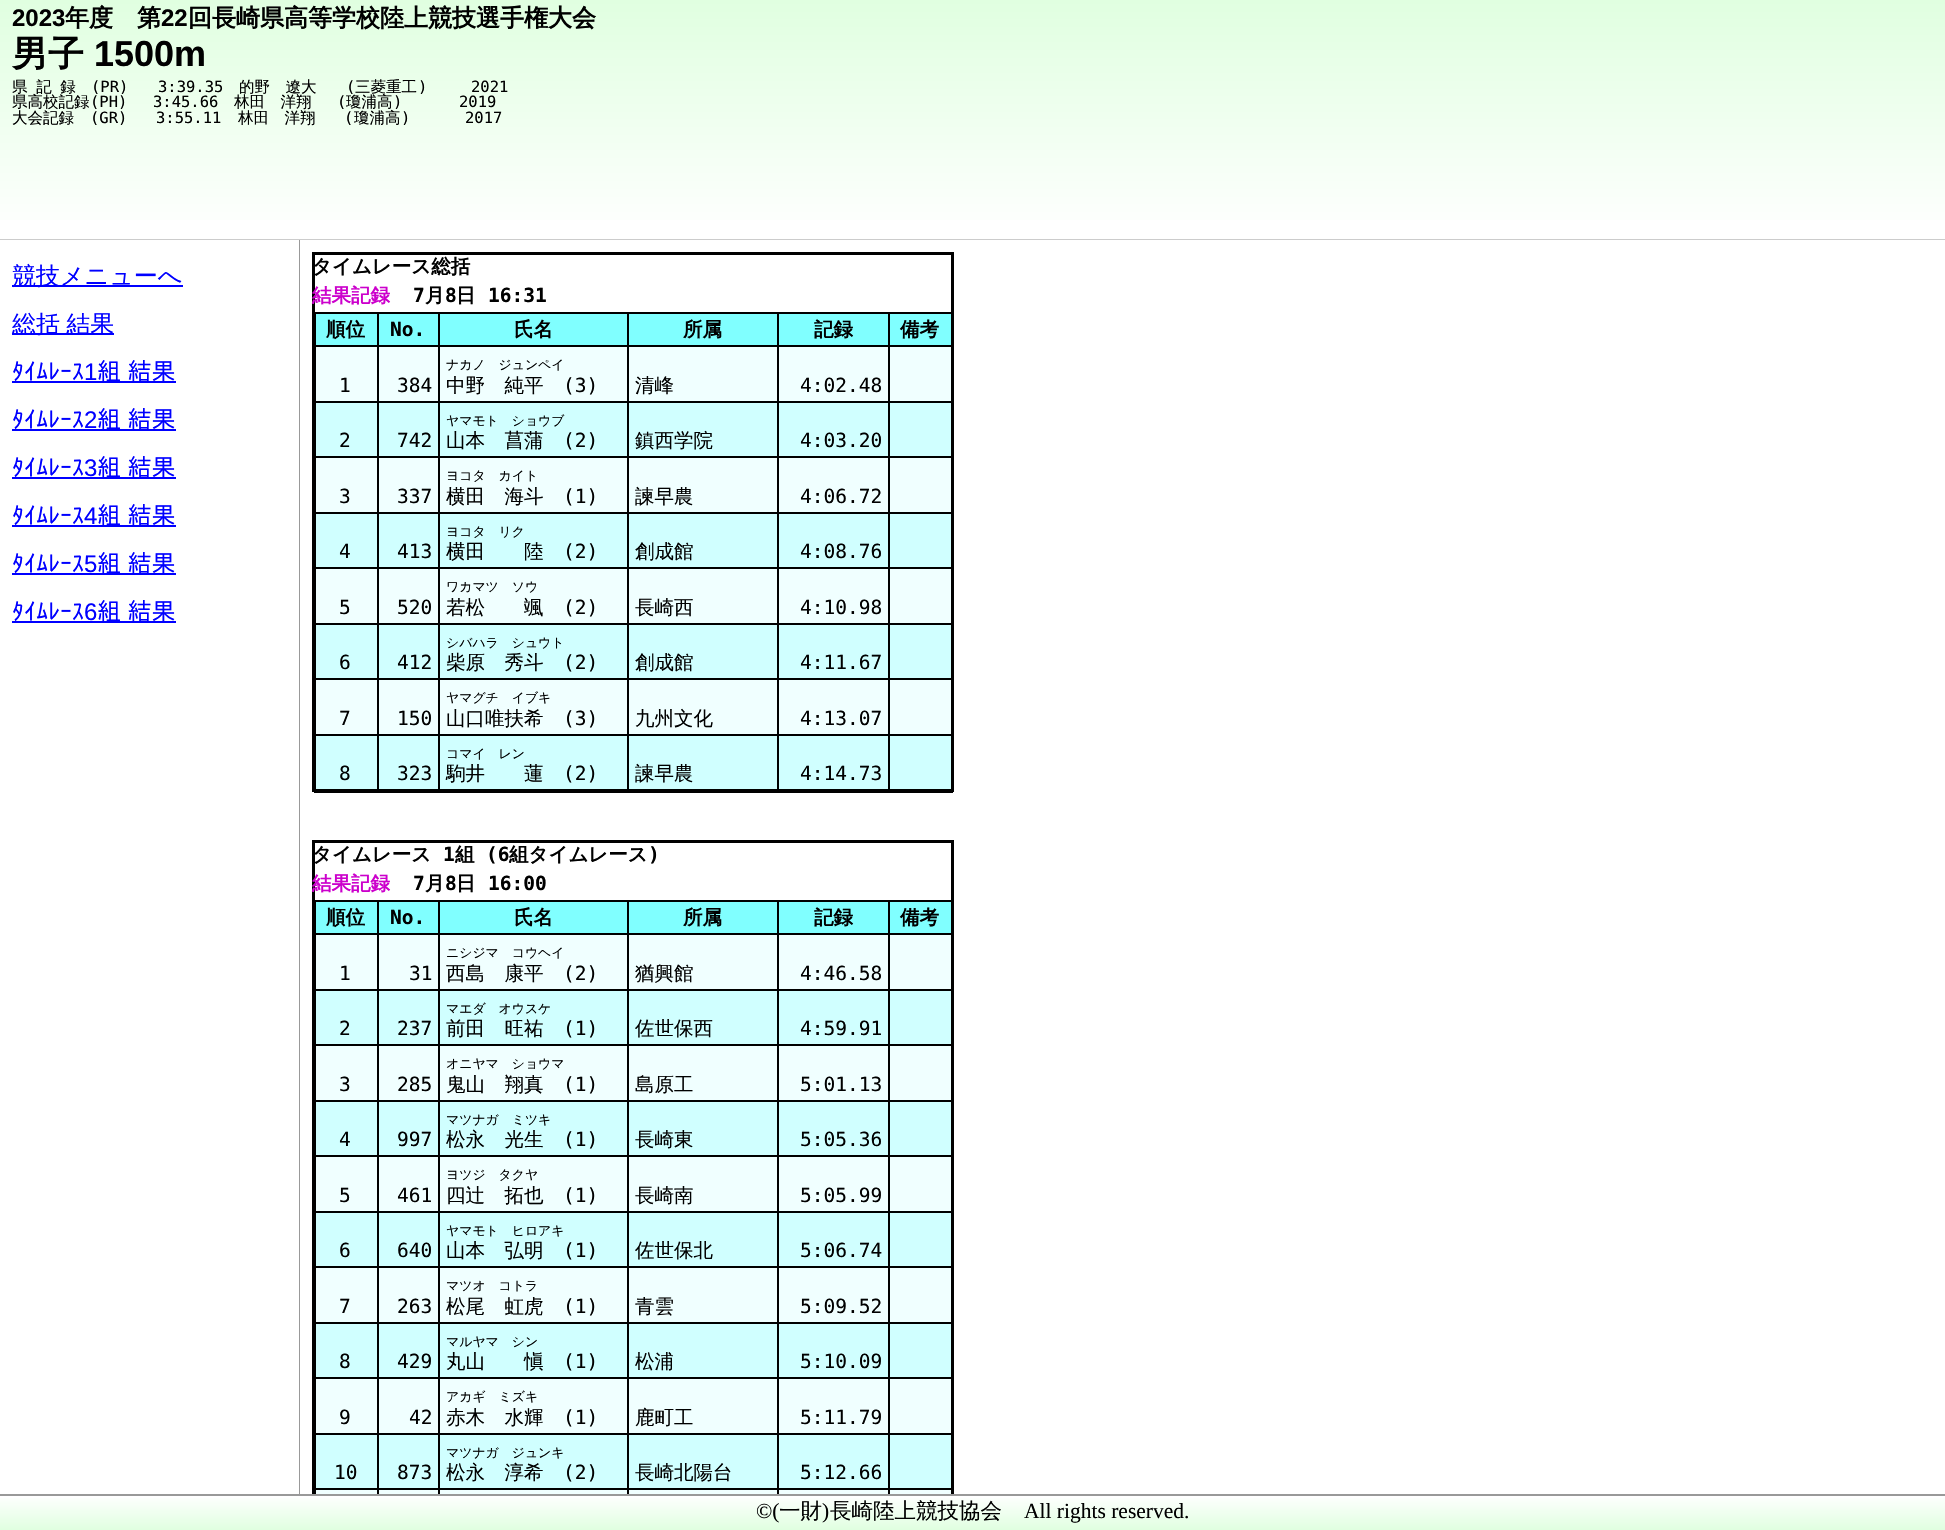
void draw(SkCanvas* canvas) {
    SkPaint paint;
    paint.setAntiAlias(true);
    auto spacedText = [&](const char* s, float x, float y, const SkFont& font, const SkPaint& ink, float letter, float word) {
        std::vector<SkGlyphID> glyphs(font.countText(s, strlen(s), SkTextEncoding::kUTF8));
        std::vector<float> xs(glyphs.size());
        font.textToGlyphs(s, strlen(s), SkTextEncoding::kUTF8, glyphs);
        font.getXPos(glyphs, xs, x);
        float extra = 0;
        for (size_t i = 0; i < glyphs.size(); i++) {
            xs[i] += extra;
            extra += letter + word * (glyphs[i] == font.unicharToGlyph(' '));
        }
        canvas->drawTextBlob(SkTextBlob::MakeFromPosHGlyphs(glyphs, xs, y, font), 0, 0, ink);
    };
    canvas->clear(0xFFFFFFFF);
    {
        const SkColor colors[] = {0xFFE0FFE0, 0xFFFFFFFF};
        const float stops[] = {0, 1};
        const SkPoint ends[] = {{973, 0}, {973, 239}};
        paint.setShader(SkGradientShader::MakeLinear(ends, colors, stops, 2, SkTileMode::kClamp));
        paint.setAlpha(255);
    }
    canvas->drawRect(SkRect::MakeXYWH(0, 0, 1945, 220), paint);
    paint.setShader(nullptr);
    paint.setColor(0xFFCCCCCC);
    canvas->drawRect(SkRect::MakeXYWH(0, 239, 1945, 1), paint);
    SkFont font1(fontMgr->matchFamilyStyle("Liberation Sans", SkFontStyle::Bold()), 24);
    font1.setSubpixel(true);
    paint.setColor(0xFF000000);
    canvas->drawString("2023", 12, 26, font1, paint);
    SkFont font2(fontMgr->matchFamilyStyle("WenQuanYi Zen Hei", SkFontStyle::Bold()), 24);
    font2.setSubpixel(true);
    canvas->drawString("年度　第", 65, 26, font2, paint);
    canvas->drawString("22", 161, 26, font1, paint);
    canvas->drawString("回長崎県高等学校陸上競技選手権大会", 188, 26, font2, paint);
    SkFont font3(fontMgr->matchFamilyStyle("WenQuanYi Zen Hei", SkFontStyle::Bold()), 36);
    font3.setSubpixel(true);
    canvas->drawString("男子", 12, 66, font3, paint);
    SkFont font4(fontMgr->matchFamilyStyle("Liberation Sans", SkFontStyle::Bold()), 36);
    font4.setSubpixel(true);
    canvas->drawString("1500m", 94, 66, font4, paint);
    SkFont font5(fontMgr->matchFamilyStyle("WenQuanYi Zen Hei", SkFontStyle(500, SkFontStyle::kNormal_Width, SkFontStyle::kUpright_Slant)), 15.5f);
    font5.setSubpixel(true);
    spacedText("県 記 録", 12, 92, font5, paint, 0, 4);
    SkFont font6(fontMgr->matchFamilyStyle("DejaVu Sans Mono", SkFontStyle::Normal()), 15.5f);
    font6.setSubpixel(true);
    canvas->drawString("(PR)", 91, 92, font6, paint);
    canvas->drawString("3:39.35", 158, 92, font6, paint);
    canvas->drawString("的野　遼大", 239, 92, font5, paint);
    canvas->drawString("(", 346, 92, font6, paint);
    canvas->drawString("三菱重工", 355, 92, font5, paint);
    canvas->drawString(")", 418, 92, font6, paint);
    canvas->drawString("2021", 471, 92, font6, paint);
    canvas->drawString("県高校記録", 12, 107, font5, paint);
    canvas->drawString("(PH)", 90, 107, font6, paint);
    canvas->drawString("3:45.66", 153, 107, font6, paint);
    canvas->drawString("林田　洋翔", 234, 107, font5, paint);
    canvas->drawString("(", 337, 107, font6, paint);
    canvas->drawString("瓊浦高", 346, 107, font5, paint);
    canvas->drawString(")", 393, 107, font6, paint);
    canvas->drawString("2019", 459, 107, font6, paint);
    canvas->drawString("大会記録", 12, 123, font5, paint);
    canvas->drawString("(GR)", 90, 123, font6, paint);
    canvas->drawString("3:55.11", 156, 123, font6, paint);
    canvas->drawString("林田　洋翔", 238, 123, font5, paint);
    canvas->drawString("(", 344, 123, font6, paint);
    canvas->drawString("瓊浦高", 354, 123, font5, paint);
    canvas->drawString(")", 401, 123, font6, paint);
    canvas->drawString("2017", 465, 123, font6, paint);
    paint.setColor(0xFF999999);
    canvas->drawRect(SkRect::MakeXYWH(299, 240, 1, 1254), paint);
    paint.setColor(0xFF0000FF);
    canvas->drawRect(SkRect::MakeXYWH(12, 285, 171, 2), paint);
    SkFont font7(fontMgr->matchFamilyStyle("WenQuanYi Zen Hei", SkFontStyle(500, SkFontStyle::kNormal_Width, SkFontStyle::kUpright_Slant)), 24);
    font7.setSubpixel(true);
    canvas->drawString("競技メニューへ", 12, 284, font7, paint);
    canvas->drawRect(SkRect::MakeXYWH(12, 333, 102, 2), paint);
    spacedText("総括 結果", 12, 332, font7, paint, 0, -1);
    canvas->drawRect(SkRect::MakeXYWH(12, 381, 164, 2), paint);
    SkFont font8(fontMgr->matchFamilyStyle("IPAPGothic", SkFontStyle::Normal()), 24);
    font8.setSubpixel(true);
    canvas->drawString("ﾀｲﾑﾚｰｽ", 12, 380, font8, paint);
    SkFont font9(fontMgr->matchFamilyStyle("Liberation Sans", SkFontStyle::Normal()), 24);
    font9.setSubpixel(true);
    canvas->drawString("1", 84, 380, font9, paint);
    canvas->drawString("組 結果", 97, 380, font8, paint);
    canvas->drawRect(SkRect::MakeXYWH(12, 429, 164, 2), paint);
    canvas->drawString("ﾀｲﾑﾚｰｽ", 12, 428, font8, paint);
    canvas->drawString("2", 84, 428, font9, paint);
    canvas->drawString("組 結果", 97, 428, font8, paint);
    canvas->drawRect(SkRect::MakeXYWH(12, 477, 164, 2), paint);
    canvas->drawString("ﾀｲﾑﾚｰｽ", 12, 476, font8, paint);
    canvas->drawString("3", 84, 476, font9, paint);
    canvas->drawString("組 結果", 97, 476, font8, paint);
    canvas->drawRect(SkRect::MakeXYWH(12, 525, 164, 2), paint);
    canvas->drawString("ﾀｲﾑﾚｰｽ", 12, 524, font8, paint);
    canvas->drawString("4", 84, 524, font9, paint);
    canvas->drawString("組 結果", 97, 524, font8, paint);
    canvas->drawRect(SkRect::MakeXYWH(12, 573, 164, 2), paint);
    canvas->drawString("ﾀｲﾑﾚｰｽ", 12, 572, font8, paint);
    canvas->drawString("5", 84, 572, font9, paint);
    canvas->drawString("組 結果", 97, 572, font8, paint);
    canvas->drawRect(SkRect::MakeXYWH(12, 621, 164, 2), paint);
    canvas->drawString("ﾀｲﾑﾚｰｽ", 12, 620, font8, paint);
    canvas->drawString("6", 84, 620, font9, paint);
    canvas->drawString("組 結果", 97, 620, font8, paint);
    paint.setColor(0xFF000000);
    canvas->drawRect(SkRect::MakeXYWH(312, 252, 642, 3), paint);
    canvas->drawRect(SkRect::MakeXYWH(888, 312, 65, 2), paint);
    canvas->drawRect(SkRect::MakeXYWH(888, 345, 65, 2), paint);
    canvas->drawRect(SkRect::MakeXYWH(888, 401, 65, 2), paint);
    canvas->drawRect(SkRect::MakeXYWH(888, 456, 65, 2), paint);
    canvas->drawRect(SkRect::MakeXYWH(888, 512, 65, 2), paint);
    canvas->drawRect(SkRect::MakeXYWH(888, 567, 65, 2), paint);
    canvas->drawRect(SkRect::MakeXYWH(888, 623, 65, 2), paint);
    canvas->drawRect(SkRect::MakeXYWH(888, 678, 65, 2), paint);
    canvas->drawRect(SkRect::MakeXYWH(888, 734, 65, 2), paint);
    canvas->drawRect(SkRect::MakeXYWH(951, 252, 3, 540), paint);
    paint.setColor(0xFFD0FFFF);
    canvas->drawRect(SkRect::MakeXYWH(316, 736, 635, 53), paint);
    paint.setColor(0xFF000000);
    canvas->drawRect(SkRect::MakeXYWH(888, 734, 2, 58), paint);
    canvas->drawRect(SkRect::MakeXYWH(777, 734, 113, 2), paint);
    canvas->drawRect(SkRect::MakeXYWH(777, 734, 2, 58), paint);
    canvas->drawRect(SkRect::MakeXYWH(627, 734, 152, 2), paint);
    canvas->drawRect(SkRect::MakeXYWH(627, 734, 2, 58), paint);
    canvas->drawRect(SkRect::MakeXYWH(438, 734, 191, 2), paint);
    canvas->drawRect(SkRect::MakeXYWH(438, 734, 2, 58), paint);
    canvas->drawRect(SkRect::MakeXYWH(377, 734, 63, 2), paint);
    canvas->drawRect(SkRect::MakeXYWH(377, 734, 2, 58), paint);
    canvas->drawRect(SkRect::MakeXYWH(314, 734, 64, 2), paint);
    canvas->drawRect(SkRect::MakeXYWH(315, 734, 1, 58), paint);
    canvas->drawRect(SkRect::MakeXYWH(312, 789, 642, 3), paint);
    paint.setColor(0xFF80FFFF);
    canvas->drawRect(SkRect::MakeXYWH(316, 314, 635, 31), paint);
    paint.setColor(0xFFF0FFFF);
    canvas->drawRect(SkRect::MakeXYWH(316, 347, 635, 54), paint);
    paint.setColor(0xFFD0FFFF);
    canvas->drawRect(SkRect::MakeXYWH(316, 403, 635, 53), paint);
    paint.setColor(0xFFF0FFFF);
    canvas->drawRect(SkRect::MakeXYWH(316, 458, 635, 54), paint);
    paint.setColor(0xFFD0FFFF);
    canvas->drawRect(SkRect::MakeXYWH(316, 514, 635, 53), paint);
    paint.setColor(0xFFF0FFFF);
    canvas->drawRect(SkRect::MakeXYWH(316, 569, 635, 54), paint);
    paint.setColor(0xFFD0FFFF);
    canvas->drawRect(SkRect::MakeXYWH(316, 625, 635, 53), paint);
    paint.setColor(0xFFF0FFFF);
    canvas->drawRect(SkRect::MakeXYWH(316, 680, 635, 54), paint);
    paint.setColor(0xFF000000);
    canvas->drawRect(SkRect::MakeXYWH(888, 678, 2, 57), paint);
    canvas->drawRect(SkRect::MakeXYWH(777, 678, 113, 2), paint);
    canvas->drawRect(SkRect::MakeXYWH(888, 623, 2, 57), paint);
    canvas->drawRect(SkRect::MakeXYWH(777, 623, 113, 2), paint);
    canvas->drawRect(SkRect::MakeXYWH(888, 567, 2, 57), paint);
    canvas->drawRect(SkRect::MakeXYWH(777, 567, 113, 2), paint);
    canvas->drawRect(SkRect::MakeXYWH(888, 512, 2, 57), paint);
    canvas->drawRect(SkRect::MakeXYWH(777, 512, 113, 2), paint);
    canvas->drawRect(SkRect::MakeXYWH(888, 456, 2, 57), paint);
    canvas->drawRect(SkRect::MakeXYWH(777, 456, 113, 2), paint);
    canvas->drawRect(SkRect::MakeXYWH(888, 401, 2, 57), paint);
    canvas->drawRect(SkRect::MakeXYWH(777, 401, 113, 2), paint);
    canvas->drawRect(SkRect::MakeXYWH(888, 345, 2, 57), paint);
    canvas->drawRect(SkRect::MakeXYWH(777, 345, 113, 2), paint);
    canvas->drawRect(SkRect::MakeXYWH(888, 312, 2, 35), paint);
    canvas->drawRect(SkRect::MakeXYWH(777, 312, 113, 2), paint);
    canvas->drawRect(SkRect::MakeXYWH(777, 678, 2, 57), paint);
    canvas->drawRect(SkRect::MakeXYWH(627, 678, 152, 2), paint);
    canvas->drawRect(SkRect::MakeXYWH(777, 623, 2, 57), paint);
    canvas->drawRect(SkRect::MakeXYWH(627, 623, 152, 2), paint);
    canvas->drawRect(SkRect::MakeXYWH(777, 567, 2, 57), paint);
    canvas->drawRect(SkRect::MakeXYWH(627, 567, 152, 2), paint);
    canvas->drawRect(SkRect::MakeXYWH(777, 512, 2, 57), paint);
    canvas->drawRect(SkRect::MakeXYWH(627, 512, 152, 2), paint);
    canvas->drawRect(SkRect::MakeXYWH(777, 456, 2, 57), paint);
    canvas->drawRect(SkRect::MakeXYWH(627, 456, 152, 2), paint);
    canvas->drawRect(SkRect::MakeXYWH(777, 401, 2, 57), paint);
    canvas->drawRect(SkRect::MakeXYWH(627, 401, 152, 2), paint);
    canvas->drawRect(SkRect::MakeXYWH(777, 345, 2, 57), paint);
    canvas->drawRect(SkRect::MakeXYWH(627, 345, 152, 2), paint);
    canvas->drawRect(SkRect::MakeXYWH(777, 312, 2, 35), paint);
    canvas->drawRect(SkRect::MakeXYWH(627, 312, 152, 2), paint);
    canvas->drawRect(SkRect::MakeXYWH(627, 678, 2, 57), paint);
    canvas->drawRect(SkRect::MakeXYWH(438, 678, 191, 2), paint);
    canvas->drawRect(SkRect::MakeXYWH(627, 623, 2, 57), paint);
    canvas->drawRect(SkRect::MakeXYWH(438, 623, 191, 2), paint);
    canvas->drawRect(SkRect::MakeXYWH(627, 567, 2, 57), paint);
    canvas->drawRect(SkRect::MakeXYWH(438, 567, 191, 2), paint);
    canvas->drawRect(SkRect::MakeXYWH(627, 512, 2, 57), paint);
    canvas->drawRect(SkRect::MakeXYWH(438, 512, 191, 2), paint);
    canvas->drawRect(SkRect::MakeXYWH(627, 456, 2, 57), paint);
    canvas->drawRect(SkRect::MakeXYWH(438, 456, 191, 2), paint);
    canvas->drawRect(SkRect::MakeXYWH(627, 401, 2, 57), paint);
    canvas->drawRect(SkRect::MakeXYWH(438, 401, 191, 2), paint);
    canvas->drawRect(SkRect::MakeXYWH(627, 345, 2, 57), paint);
    canvas->drawRect(SkRect::MakeXYWH(438, 345, 191, 2), paint);
    canvas->drawRect(SkRect::MakeXYWH(627, 312, 2, 35), paint);
    canvas->drawRect(SkRect::MakeXYWH(438, 312, 191, 2), paint);
    canvas->drawRect(SkRect::MakeXYWH(438, 678, 2, 57), paint);
    canvas->drawRect(SkRect::MakeXYWH(377, 678, 63, 2), paint);
    canvas->drawRect(SkRect::MakeXYWH(438, 623, 2, 57), paint);
    canvas->drawRect(SkRect::MakeXYWH(377, 623, 63, 2), paint);
    canvas->drawRect(SkRect::MakeXYWH(438, 567, 2, 57), paint);
    canvas->drawRect(SkRect::MakeXYWH(377, 567, 63, 2), paint);
    canvas->drawRect(SkRect::MakeXYWH(438, 512, 2, 57), paint);
    canvas->drawRect(SkRect::MakeXYWH(377, 512, 63, 2), paint);
    canvas->drawRect(SkRect::MakeXYWH(438, 456, 2, 57), paint);
    canvas->drawRect(SkRect::MakeXYWH(377, 456, 63, 2), paint);
    canvas->drawRect(SkRect::MakeXYWH(438, 401, 2, 57), paint);
    canvas->drawRect(SkRect::MakeXYWH(377, 401, 63, 2), paint);
    canvas->drawRect(SkRect::MakeXYWH(438, 345, 2, 57), paint);
    canvas->drawRect(SkRect::MakeXYWH(377, 345, 63, 2), paint);
    canvas->drawRect(SkRect::MakeXYWH(438, 312, 2, 35), paint);
    canvas->drawRect(SkRect::MakeXYWH(377, 312, 63, 2), paint);
    canvas->drawRect(SkRect::MakeXYWH(377, 678, 2, 57), paint);
    canvas->drawRect(SkRect::MakeXYWH(314, 678, 64, 2), paint);
    canvas->drawRect(SkRect::MakeXYWH(377, 623, 2, 57), paint);
    canvas->drawRect(SkRect::MakeXYWH(314, 623, 64, 2), paint);
    canvas->drawRect(SkRect::MakeXYWH(377, 567, 2, 57), paint);
    canvas->drawRect(SkRect::MakeXYWH(314, 567, 64, 2), paint);
    canvas->drawRect(SkRect::MakeXYWH(377, 512, 2, 57), paint);
    canvas->drawRect(SkRect::MakeXYWH(314, 512, 64, 2), paint);
    canvas->drawRect(SkRect::MakeXYWH(377, 456, 2, 57), paint);
    canvas->drawRect(SkRect::MakeXYWH(314, 456, 64, 2), paint);
    canvas->drawRect(SkRect::MakeXYWH(377, 401, 2, 57), paint);
    canvas->drawRect(SkRect::MakeXYWH(314, 401, 64, 2), paint);
    canvas->drawRect(SkRect::MakeXYWH(377, 345, 2, 57), paint);
    canvas->drawRect(SkRect::MakeXYWH(314, 345, 64, 2), paint);
    canvas->drawRect(SkRect::MakeXYWH(377, 312, 2, 35), paint);
    canvas->drawRect(SkRect::MakeXYWH(314, 312, 64, 2), paint);
    canvas->drawRect(SkRect::MakeXYWH(312, 252, 3, 540), paint);
    SkFont font10(fontMgr->matchFamilyStyle("WenQuanYi Zen Hei", SkFontStyle::Bold()), 19.5f);
    font10.setSubpixel(true);
    canvas->drawString("タイムレース総括", 312, 273, font10, paint);
    paint.setColor(0xFFCC00CC);
    canvas->drawString("結果記録", 312, 302, font10, paint);
    SkFont font11(fontMgr->matchFamilyStyle("DejaVu Sans Mono", SkFontStyle::Bold()), 19.5f);
    font11.setSubpixel(true);
    paint.setColor(0xFF000000);
    canvas->drawString("7", 413, 302, font11, paint);
    canvas->drawString("月", 425, 302, font10, paint);
    canvas->drawString("8", 445, 302, font11, paint);
    canvas->drawString("日", 456, 302, font10, paint);
    canvas->drawString("16:31", 488, 302, font11, paint);
    canvas->drawRect(SkRect::MakeXYWH(315, 678, 1, 57), paint);
    canvas->drawRect(SkRect::MakeXYWH(315, 623, 1, 57), paint);
    canvas->drawRect(SkRect::MakeXYWH(315, 567, 1, 57), paint);
    canvas->drawRect(SkRect::MakeXYWH(315, 512, 1, 57), paint);
    canvas->drawRect(SkRect::MakeXYWH(315, 456, 1, 57), paint);
    canvas->drawRect(SkRect::MakeXYWH(315, 401, 1, 57), paint);
    canvas->drawRect(SkRect::MakeXYWH(315, 345, 1, 57), paint);
    canvas->drawRect(SkRect::MakeXYWH(315, 312, 1, 35), paint);
    canvas->drawString("順位", 326, 336, font10, paint);
    canvas->drawString("No.", 390, 336, font11, paint);
    canvas->drawString("氏名", 514, 336, font10, paint);
    canvas->drawString("所属", 683, 336, font10, paint);
    canvas->drawString("記録", 814, 336, font10, paint);
    canvas->drawString("備考", 900, 336, font10, paint);
    SkFont font12(fontMgr->matchFamilyStyle("DejaVu Sans Mono", SkFontStyle::Normal()), 19.5f);
    font12.setSubpixel(true);
    canvas->drawString("1", 339, 392, font12, paint);
    canvas->drawString("384", 397, 392, font12, paint);
    SkFont font13(fontMgr->matchFamilyStyle("WenQuanYi Zen Hei", SkFontStyle(500, SkFontStyle::kNormal_Width, SkFontStyle::kUpright_Slant)), 12.9f);
    font13.setSubpixel(true);
    canvas->drawString("ナカノ　ジュンペイ", 446, 369, font13, paint);
    SkFont font14(fontMgr->matchFamilyStyle("WenQuanYi Zen Hei", SkFontStyle(500, SkFontStyle::kNormal_Width, SkFontStyle::kUpright_Slant)), 19.5f);
    font14.setSubpixel(true);
    canvas->drawString("中野　純平", 446, 392, font14, paint);
    canvas->drawString("(3)", 563, 392, font12, paint);
    canvas->drawString("清峰", 635, 392, font14, paint);
    canvas->drawString("4:02.48", 800, 392, font12, paint);
    canvas->drawString("2", 339, 447, font12, paint);
    canvas->drawString("742", 397, 447, font12, paint);
    canvas->drawString("ヤマモト　ショウブ", 446, 425, font13, paint);
    canvas->drawString("山本　菖蒲", 446, 447, font14, paint);
    canvas->drawString("(2)", 563, 447, font12, paint);
    canvas->drawString("鎮西学院", 635, 447, font14, paint);
    canvas->drawString("4:03.20", 800, 447, font12, paint);
    canvas->drawString("3", 339, 503, font12, paint);
    canvas->drawString("337", 397, 503, font12, paint);
    canvas->drawString("ヨコタ　カイト", 446, 480, font13, paint);
    canvas->drawString("横田　海斗", 446, 503, font14, paint);
    canvas->drawString("(1)", 563, 503, font12, paint);
    canvas->drawString("諫早農", 635, 503, font14, paint);
    canvas->drawString("4:06.72", 800, 503, font12, paint);
    canvas->drawString("4", 339, 558, font12, paint);
    canvas->drawString("413", 397, 558, font12, paint);
    canvas->drawString("ヨコタ　リク", 446, 536, font13, paint);
    canvas->drawString("横田　　陸", 446, 558, font14, paint);
    canvas->drawString("(2)", 563, 558, font12, paint);
    canvas->drawString("創成館", 635, 558, font14, paint);
    canvas->drawString("4:08.76", 800, 558, font12, paint);
    canvas->drawString("5", 339, 614, font12, paint);
    canvas->drawString("520", 397, 614, font12, paint);
    canvas->drawString("ワカマツ　ソウ", 446, 591, font13, paint);
    canvas->drawString("若松　　颯", 446, 614, font14, paint);
    canvas->drawString("(2)", 563, 614, font12, paint);
    canvas->drawString("長崎西", 635, 614, font14, paint);
    canvas->drawString("4:10.98", 800, 614, font12, paint);
    canvas->drawString("6", 339, 669, font12, paint);
    canvas->drawString("412", 397, 669, font12, paint);
    canvas->drawString("シバハラ　シュウト", 446, 647, font13, paint);
    canvas->drawString("柴原　秀斗", 446, 669, font14, paint);
    canvas->drawString("(2)", 563, 669, font12, paint);
    canvas->drawString("創成館", 635, 669, font14, paint);
    canvas->drawString("4:11.67", 800, 669, font12, paint);
    canvas->drawString("7", 339, 725, font12, paint);
    canvas->drawString("150", 397, 725, font12, paint);
    canvas->drawString("ヤマグチ　イブキ", 446, 702, font13, paint);
    canvas->drawString("山口唯扶希", 446, 725, font14, paint);
    canvas->drawString("(3)", 563, 725, font12, paint);
    canvas->drawString("九州文化", 635, 725, font14, paint);
    canvas->drawString("4:13.07", 800, 725, font12, paint);
    canvas->drawRect(SkRect::MakeXYWH(314, 792, 639, 1), paint);
    canvas->drawString("8", 339, 780, font12, paint);
    canvas->drawString("323", 397, 780, font12, paint);
    canvas->drawString("コマイ　レン", 446, 758, font13, paint);
    canvas->drawString("駒井　　蓮", 446, 780, font14, paint);
    canvas->drawString("(2)", 563, 780, font12, paint);
    canvas->drawString("諫早農", 635, 780, font14, paint);
    canvas->drawString("4:14.73", 800, 780, font12, paint);
    canvas->drawRect(SkRect::MakeXYWH(312, 840, 642, 3), paint);
    canvas->drawRect(SkRect::MakeXYWH(888, 900, 65, 2), paint);
    canvas->drawRect(SkRect::MakeXYWH(888, 933, 65, 2), paint);
    canvas->drawRect(SkRect::MakeXYWH(888, 989, 65, 2), paint);
    canvas->drawRect(SkRect::MakeXYWH(888, 1044, 65, 2), paint);
    canvas->drawRect(SkRect::MakeXYWH(888, 1100, 65, 2), paint);
    canvas->drawRect(SkRect::MakeXYWH(888, 1155, 65, 2), paint);
    canvas->drawRect(SkRect::MakeXYWH(888, 1211, 65, 2), paint);
    canvas->drawRect(SkRect::MakeXYWH(888, 1266, 65, 2), paint);
    canvas->drawRect(SkRect::MakeXYWH(888, 1322, 65, 2), paint);
    canvas->drawRect(SkRect::MakeXYWH(888, 1377, 65, 2), paint);
    canvas->drawRect(SkRect::MakeXYWH(888, 1433, 65, 2), paint);
    paint.setColor(0xFFF0FFFF);
    canvas->drawRect(SkRect::MakeXYWH(314, 1490, 639, 4), paint);
    paint.setColor(0xFF000000);
    canvas->drawRect(SkRect::MakeXYWH(888, 1488, 65, 2), paint);
    canvas->drawRect(SkRect::MakeXYWH(951, 840, 3, 654), paint);
    paint.setColor(0xFF80FFFF);
    canvas->drawRect(SkRect::MakeXYWH(316, 902, 635, 31), paint);
    paint.setColor(0xFFF0FFFF);
    canvas->drawRect(SkRect::MakeXYWH(316, 935, 635, 54), paint);
    paint.setColor(0xFFD0FFFF);
    canvas->drawRect(SkRect::MakeXYWH(316, 991, 635, 53), paint);
    paint.setColor(0xFFF0FFFF);
    canvas->drawRect(SkRect::MakeXYWH(316, 1046, 635, 54), paint);
    paint.setColor(0xFFD0FFFF);
    canvas->drawRect(SkRect::MakeXYWH(316, 1102, 635, 53), paint);
    paint.setColor(0xFFF0FFFF);
    canvas->drawRect(SkRect::MakeXYWH(316, 1157, 635, 54), paint);
    paint.setColor(0xFFD0FFFF);
    canvas->drawRect(SkRect::MakeXYWH(316, 1213, 635, 53), paint);
    paint.setColor(0xFFF0FFFF);
    canvas->drawRect(SkRect::MakeXYWH(316, 1268, 635, 54), paint);
    paint.setColor(0xFFD0FFFF);
    canvas->drawRect(SkRect::MakeXYWH(316, 1324, 635, 53), paint);
    paint.setColor(0xFFF0FFFF);
    canvas->drawRect(SkRect::MakeXYWH(316, 1379, 635, 54), paint);
    paint.setColor(0xFFD0FFFF);
    canvas->drawRect(SkRect::MakeXYWH(316, 1435, 635, 53), paint);
    paint.setColor(0xFF000000);
    canvas->drawRect(SkRect::MakeXYWH(888, 1488, 2, 6), paint);
    canvas->drawRect(SkRect::MakeXYWH(777, 1488, 113, 2), paint);
    canvas->drawRect(SkRect::MakeXYWH(888, 1433, 2, 57), paint);
    canvas->drawRect(SkRect::MakeXYWH(777, 1433, 113, 2), paint);
    canvas->drawRect(SkRect::MakeXYWH(888, 1377, 2, 57), paint);
    canvas->drawRect(SkRect::MakeXYWH(777, 1377, 113, 2), paint);
    canvas->drawRect(SkRect::MakeXYWH(888, 1322, 2, 57), paint);
    canvas->drawRect(SkRect::MakeXYWH(777, 1322, 113, 2), paint);
    canvas->drawRect(SkRect::MakeXYWH(888, 1266, 2, 57), paint);
    canvas->drawRect(SkRect::MakeXYWH(777, 1266, 113, 2), paint);
    canvas->drawRect(SkRect::MakeXYWH(888, 1211, 2, 57), paint);
    canvas->drawRect(SkRect::MakeXYWH(777, 1211, 113, 2), paint);
    canvas->drawRect(SkRect::MakeXYWH(888, 1155, 2, 57), paint);
    canvas->drawRect(SkRect::MakeXYWH(777, 1155, 113, 2), paint);
    canvas->drawRect(SkRect::MakeXYWH(888, 1100, 2, 57), paint);
    canvas->drawRect(SkRect::MakeXYWH(777, 1100, 113, 2), paint);
    canvas->drawRect(SkRect::MakeXYWH(888, 1044, 2, 57), paint);
    canvas->drawRect(SkRect::MakeXYWH(777, 1044, 113, 2), paint);
    canvas->drawRect(SkRect::MakeXYWH(888, 989, 2, 57), paint);
    canvas->drawRect(SkRect::MakeXYWH(777, 989, 113, 2), paint);
    canvas->drawRect(SkRect::MakeXYWH(888, 933, 2, 57), paint);
    canvas->drawRect(SkRect::MakeXYWH(777, 933, 113, 2), paint);
    canvas->drawRect(SkRect::MakeXYWH(888, 900, 2, 35), paint);
    canvas->drawRect(SkRect::MakeXYWH(777, 900, 113, 2), paint);
    canvas->drawRect(SkRect::MakeXYWH(777, 1488, 2, 6), paint);
    canvas->drawRect(SkRect::MakeXYWH(627, 1488, 152, 2), paint);
    canvas->drawRect(SkRect::MakeXYWH(777, 1433, 2, 57), paint);
    canvas->drawRect(SkRect::MakeXYWH(627, 1433, 152, 2), paint);
    canvas->drawRect(SkRect::MakeXYWH(777, 1377, 2, 57), paint);
    canvas->drawRect(SkRect::MakeXYWH(627, 1377, 152, 2), paint);
    canvas->drawRect(SkRect::MakeXYWH(777, 1322, 2, 57), paint);
    canvas->drawRect(SkRect::MakeXYWH(627, 1322, 152, 2), paint);
    canvas->drawRect(SkRect::MakeXYWH(777, 1266, 2, 57), paint);
    canvas->drawRect(SkRect::MakeXYWH(627, 1266, 152, 2), paint);
    canvas->drawRect(SkRect::MakeXYWH(777, 1211, 2, 57), paint);
    canvas->drawRect(SkRect::MakeXYWH(627, 1211, 152, 2), paint);
    canvas->drawRect(SkRect::MakeXYWH(777, 1155, 2, 57), paint);
    canvas->drawRect(SkRect::MakeXYWH(627, 1155, 152, 2), paint);
    canvas->drawRect(SkRect::MakeXYWH(777, 1100, 2, 57), paint);
    canvas->drawRect(SkRect::MakeXYWH(627, 1100, 152, 2), paint);
    canvas->drawRect(SkRect::MakeXYWH(777, 1044, 2, 57), paint);
    canvas->drawRect(SkRect::MakeXYWH(627, 1044, 152, 2), paint);
    canvas->drawRect(SkRect::MakeXYWH(777, 989, 2, 57), paint);
    canvas->drawRect(SkRect::MakeXYWH(627, 989, 152, 2), paint);
    canvas->drawRect(SkRect::MakeXYWH(777, 933, 2, 57), paint);
    canvas->drawRect(SkRect::MakeXYWH(627, 933, 152, 2), paint);
    canvas->drawRect(SkRect::MakeXYWH(777, 900, 2, 35), paint);
    canvas->drawRect(SkRect::MakeXYWH(627, 900, 152, 2), paint);
    canvas->drawRect(SkRect::MakeXYWH(627, 1488, 2, 6), paint);
    canvas->drawRect(SkRect::MakeXYWH(438, 1488, 191, 2), paint);
    canvas->drawRect(SkRect::MakeXYWH(627, 1433, 2, 57), paint);
    canvas->drawRect(SkRect::MakeXYWH(438, 1433, 191, 2), paint);
    canvas->drawRect(SkRect::MakeXYWH(627, 1377, 2, 57), paint);
    canvas->drawRect(SkRect::MakeXYWH(438, 1377, 191, 2), paint);
    canvas->drawRect(SkRect::MakeXYWH(627, 1322, 2, 57), paint);
    canvas->drawRect(SkRect::MakeXYWH(438, 1322, 191, 2), paint);
    canvas->drawRect(SkRect::MakeXYWH(627, 1266, 2, 57), paint);
    canvas->drawRect(SkRect::MakeXYWH(438, 1266, 191, 2), paint);
    canvas->drawRect(SkRect::MakeXYWH(627, 1211, 2, 57), paint);
    canvas->drawRect(SkRect::MakeXYWH(438, 1211, 191, 2), paint);
    canvas->drawRect(SkRect::MakeXYWH(627, 1155, 2, 57), paint);
    canvas->drawRect(SkRect::MakeXYWH(438, 1155, 191, 2), paint);
    canvas->drawRect(SkRect::MakeXYWH(627, 1100, 2, 57), paint);
    canvas->drawRect(SkRect::MakeXYWH(438, 1100, 191, 2), paint);
    canvas->drawRect(SkRect::MakeXYWH(627, 1044, 2, 57), paint);
    canvas->drawRect(SkRect::MakeXYWH(438, 1044, 191, 2), paint);
    canvas->drawRect(SkRect::MakeXYWH(627, 989, 2, 57), paint);
    canvas->drawRect(SkRect::MakeXYWH(438, 989, 191, 2), paint);
    canvas->drawRect(SkRect::MakeXYWH(627, 933, 2, 57), paint);
    canvas->drawRect(SkRect::MakeXYWH(438, 933, 191, 2), paint);
    canvas->drawRect(SkRect::MakeXYWH(627, 900, 2, 35), paint);
    canvas->drawRect(SkRect::MakeXYWH(438, 900, 191, 2), paint);
    canvas->drawRect(SkRect::MakeXYWH(438, 1488, 2, 6), paint);
    canvas->drawRect(SkRect::MakeXYWH(377, 1488, 63, 2), paint);
    canvas->drawRect(SkRect::MakeXYWH(438, 1433, 2, 57), paint);
    canvas->drawRect(SkRect::MakeXYWH(377, 1433, 63, 2), paint);
    canvas->drawRect(SkRect::MakeXYWH(438, 1377, 2, 57), paint);
    canvas->drawRect(SkRect::MakeXYWH(377, 1377, 63, 2), paint);
    canvas->drawRect(SkRect::MakeXYWH(438, 1322, 2, 57), paint);
    canvas->drawRect(SkRect::MakeXYWH(377, 1322, 63, 2), paint);
    canvas->drawRect(SkRect::MakeXYWH(438, 1266, 2, 57), paint);
    canvas->drawRect(SkRect::MakeXYWH(377, 1266, 63, 2), paint);
    canvas->drawRect(SkRect::MakeXYWH(438, 1211, 2, 57), paint);
    canvas->drawRect(SkRect::MakeXYWH(377, 1211, 63, 2), paint);
    canvas->drawRect(SkRect::MakeXYWH(438, 1155, 2, 57), paint);
    canvas->drawRect(SkRect::MakeXYWH(377, 1155, 63, 2), paint);
    canvas->drawRect(SkRect::MakeXYWH(438, 1100, 2, 57), paint);
    canvas->drawRect(SkRect::MakeXYWH(377, 1100, 63, 2), paint);
    canvas->drawRect(SkRect::MakeXYWH(438, 1044, 2, 57), paint);
    canvas->drawRect(SkRect::MakeXYWH(377, 1044, 63, 2), paint);
    canvas->drawRect(SkRect::MakeXYWH(438, 989, 2, 57), paint);
    canvas->drawRect(SkRect::MakeXYWH(377, 989, 63, 2), paint);
    canvas->drawRect(SkRect::MakeXYWH(438, 933, 2, 57), paint);
    canvas->drawRect(SkRect::MakeXYWH(377, 933, 63, 2), paint);
    canvas->drawRect(SkRect::MakeXYWH(438, 900, 2, 35), paint);
    canvas->drawRect(SkRect::MakeXYWH(377, 900, 63, 2), paint);
    canvas->drawRect(SkRect::MakeXYWH(377, 1488, 2, 6), paint);
    canvas->drawRect(SkRect::MakeXYWH(314, 1488, 64, 2), paint);
    canvas->drawRect(SkRect::MakeXYWH(377, 1433, 2, 57), paint);
    canvas->drawRect(SkRect::MakeXYWH(314, 1433, 64, 2), paint);
    canvas->drawRect(SkRect::MakeXYWH(377, 1377, 2, 57), paint);
    canvas->drawRect(SkRect::MakeXYWH(314, 1377, 64, 2), paint);
    canvas->drawRect(SkRect::MakeXYWH(377, 1322, 2, 57), paint);
    canvas->drawRect(SkRect::MakeXYWH(314, 1322, 64, 2), paint);
    canvas->drawRect(SkRect::MakeXYWH(377, 1266, 2, 57), paint);
    canvas->drawRect(SkRect::MakeXYWH(314, 1266, 64, 2), paint);
    canvas->drawRect(SkRect::MakeXYWH(377, 1211, 2, 57), paint);
    canvas->drawRect(SkRect::MakeXYWH(314, 1211, 64, 2), paint);
    canvas->drawRect(SkRect::MakeXYWH(377, 1155, 2, 57), paint);
    canvas->drawRect(SkRect::MakeXYWH(314, 1155, 64, 2), paint);
    canvas->drawRect(SkRect::MakeXYWH(377, 1100, 2, 57), paint);
    canvas->drawRect(SkRect::MakeXYWH(314, 1100, 64, 2), paint);
    canvas->drawRect(SkRect::MakeXYWH(377, 1044, 2, 57), paint);
    canvas->drawRect(SkRect::MakeXYWH(314, 1044, 64, 2), paint);
    canvas->drawRect(SkRect::MakeXYWH(377, 989, 2, 57), paint);
    canvas->drawRect(SkRect::MakeXYWH(314, 989, 64, 2), paint);
    canvas->drawRect(SkRect::MakeXYWH(377, 933, 2, 57), paint);
    canvas->drawRect(SkRect::MakeXYWH(314, 933, 64, 2), paint);
    canvas->drawRect(SkRect::MakeXYWH(377, 900, 2, 35), paint);
    canvas->drawRect(SkRect::MakeXYWH(314, 900, 64, 2), paint);
    canvas->drawRect(SkRect::MakeXYWH(312, 840, 3, 654), paint);
    canvas->drawString("タイムレース", 312, 861, font10, paint);
    canvas->drawString("1", 443, 861, font11, paint);
    canvas->drawString("組", 455, 861, font10, paint);
    canvas->drawString("(6", 486, 861, font11, paint);
    canvas->drawString("組タイムレース", 509, 861, font10, paint);
    canvas->drawString(")", 648, 861, font11, paint);
    paint.setColor(0xFFCC00CC);
    canvas->drawString("結果記録", 312, 890, font10, paint);
    paint.setColor(0xFF000000);
    canvas->drawString("7", 413, 890, font11, paint);
    canvas->drawString("月", 425, 890, font10, paint);
    canvas->drawString("8", 445, 890, font11, paint);
    canvas->drawString("日", 456, 890, font10, paint);
    canvas->drawString("16:00", 488, 890, font11, paint);
    canvas->drawRect(SkRect::MakeXYWH(315, 1488, 1, 6), paint);
    canvas->drawRect(SkRect::MakeXYWH(315, 1433, 1, 57), paint);
    canvas->drawRect(SkRect::MakeXYWH(315, 1377, 1, 57), paint);
    canvas->drawRect(SkRect::MakeXYWH(315, 1322, 1, 57), paint);
    canvas->drawRect(SkRect::MakeXYWH(315, 1266, 1, 57), paint);
    canvas->drawRect(SkRect::MakeXYWH(315, 1211, 1, 57), paint);
    canvas->drawRect(SkRect::MakeXYWH(315, 1155, 1, 57), paint);
    canvas->drawRect(SkRect::MakeXYWH(315, 1100, 1, 57), paint);
    canvas->drawRect(SkRect::MakeXYWH(315, 1044, 1, 57), paint);
    canvas->drawRect(SkRect::MakeXYWH(315, 989, 1, 57), paint);
    canvas->drawRect(SkRect::MakeXYWH(315, 933, 1, 57), paint);
    canvas->drawRect(SkRect::MakeXYWH(315, 900, 1, 35), paint);
    canvas->drawString("順位", 326, 924, font10, paint);
    canvas->drawString("No.", 390, 924, font11, paint);
    canvas->drawString("氏名", 514, 924, font10, paint);
    canvas->drawString("所属", 683, 924, font10, paint);
    canvas->drawString("記録", 814, 924, font10, paint);
    canvas->drawString("備考", 900, 924, font10, paint);
    canvas->drawString("1", 339, 980, font12, paint);
    canvas->drawString("31", 409, 980, font12, paint);
    canvas->drawString("ニシジマ　コウヘイ", 446, 957, font13, paint);
    canvas->drawString("西島　康平", 446, 980, font14, paint);
    canvas->drawString("(2)", 563, 980, font12, paint);
    canvas->drawString("猶興館", 635, 980, font14, paint);
    canvas->drawString("4:46.58", 800, 980, font12, paint);
    canvas->drawString("2", 339, 1035, font12, paint);
    canvas->drawString("237", 397, 1035, font12, paint);
    canvas->drawString("マエダ　オウスケ", 446, 1013, font13, paint);
    canvas->drawString("前田　旺祐", 446, 1035, font14, paint);
    canvas->drawString("(1)", 563, 1035, font12, paint);
    canvas->drawString("佐世保西", 635, 1035, font14, paint);
    canvas->drawString("4:59.91", 800, 1035, font12, paint);
    canvas->drawString("3", 339, 1091, font12, paint);
    canvas->drawString("285", 397, 1091, font12, paint);
    canvas->drawString("オニヤマ　ショウマ", 446, 1068, font13, paint);
    canvas->drawString("鬼山　翔真", 446, 1091, font14, paint);
    canvas->drawString("(1)", 563, 1091, font12, paint);
    canvas->drawString("島原工", 635, 1091, font14, paint);
    canvas->drawString("5:01.13", 800, 1091, font12, paint);
    canvas->drawString("4", 339, 1146, font12, paint);
    canvas->drawString("997", 397, 1146, font12, paint);
    canvas->drawString("マツナガ　ミツキ", 446, 1124, font13, paint);
    canvas->drawString("松永　光生", 446, 1146, font14, paint);
    canvas->drawString("(1)", 563, 1146, font12, paint);
    canvas->drawString("長崎東", 635, 1146, font14, paint);
    canvas->drawString("5:05.36", 800, 1146, font12, paint);
    canvas->drawString("5", 339, 1202, font12, paint);
    canvas->drawString("461", 397, 1202, font12, paint);
    canvas->drawString("ヨツジ　タクヤ", 446, 1179, font13, paint);
    canvas->drawString("四辻　拓也", 446, 1202, font14, paint);
    canvas->drawString("(1)", 563, 1202, font12, paint);
    canvas->drawString("長崎南", 635, 1202, font14, paint);
    canvas->drawString("5:05.99", 800, 1202, font12, paint);
    canvas->drawString("6", 339, 1257, font12, paint);
    canvas->drawString("640", 397, 1257, font12, paint);
    canvas->drawString("ヤマモト　ヒロアキ", 446, 1235, font13, paint);
    canvas->drawString("山本　弘明", 446, 1257, font14, paint);
    canvas->drawString("(1)", 563, 1257, font12, paint);
    canvas->drawString("佐世保北", 635, 1257, font14, paint);
    canvas->drawString("5:06.74", 800, 1257, font12, paint);
    canvas->drawString("7", 339, 1313, font12, paint);
    canvas->drawString("263", 397, 1313, font12, paint);
    canvas->drawString("マツオ　コトラ", 446, 1290, font13, paint);
    canvas->drawString("松尾　虹虎", 446, 1313, font14, paint);
    canvas->drawString("(1)", 563, 1313, font12, paint);
    canvas->drawString("青雲", 635, 1313, font14, paint);
    canvas->drawString("5:09.52", 800, 1313, font12, paint);
    canvas->drawString("8", 339, 1368, font12, paint);
    canvas->drawString("429", 397, 1368, font12, paint);
    canvas->drawString("マルヤマ　シン", 446, 1346, font13, paint);
    canvas->drawString("丸山　　愼", 446, 1368, font14, paint);
    canvas->drawString("(1)", 563, 1368, font12, paint);
    canvas->drawString("松浦", 635, 1368, font14, paint);
    canvas->drawString("5:10.09", 800, 1368, font12, paint);
    canvas->drawString("9", 339, 1424, font12, paint);
    canvas->drawString("42", 409, 1424, font12, paint);
    canvas->drawString("アカギ　ミズキ", 446, 1401, font13, paint);
    canvas->drawString("赤木　水輝", 446, 1424, font14, paint);
    canvas->drawString("(1)", 563, 1424, font12, paint);
    canvas->drawString("鹿町工", 635, 1424, font14, paint);
    canvas->drawString("5:11.79", 800, 1424, font12, paint);
    canvas->drawString("10", 334, 1479, font12, paint);
    canvas->drawString("873", 397, 1479, font12, paint);
    canvas->drawString("マツナガ　ジュンキ", 446, 1457, font13, paint);
    canvas->drawString("松永　淳希", 446, 1479, font14, paint);
    canvas->drawString("(2)", 563, 1479, font12, paint);
    canvas->drawString("長崎北陽台", 635, 1479, font14, paint);
    canvas->drawString("5:12.66", 800, 1479, font12, paint);
    {
        const SkColor colors[] = {0xFFFFFFFF, 0xFFE0FFE0};
        const float stops[] = {0, 1};
        const SkPoint ends[] = {{973, 1495}, {973, 1530}};
        paint.setShader(SkGradientShader::MakeLinear(ends, colors, stops, 2, SkTileMode::kClamp));
        paint.setAlpha(255);
    }
    canvas->drawRect(SkRect::MakeXYWH(0, 1498, 1945, 32), paint);
    paint.setShader(nullptr);
    paint.setColor(0xFF999999);
    canvas->drawRect(SkRect::MakeXYWH(0, 1494, 1945, 2), paint);
    SkFont font15(fontMgr->matchFamilyStyle("Liberation Serif", SkFontStyle::Normal()), 21.5f);
    font15.setSubpixel(true);
    paint.setColor(0xFF000000);
    canvas->drawString("©(", 756, 1518, font15, paint);
    SkFont font16(fontMgr->matchFamilyStyle("WenQuanYi Zen Hei", SkFontStyle(500, SkFontStyle::kNormal_Width, SkFontStyle::kUpright_Slant)), 21.5f);
    font16.setSubpixel(true);
    canvas->drawString("一財", 779, 1518, font16, paint);
    canvas->drawString(")", 822, 1518, font15, paint);
    canvas->drawString("長崎陸上競技協会", 830, 1518, font16, paint);
    canvas->drawString("All rights reserved.", 1024, 1518, font15, paint);
}
